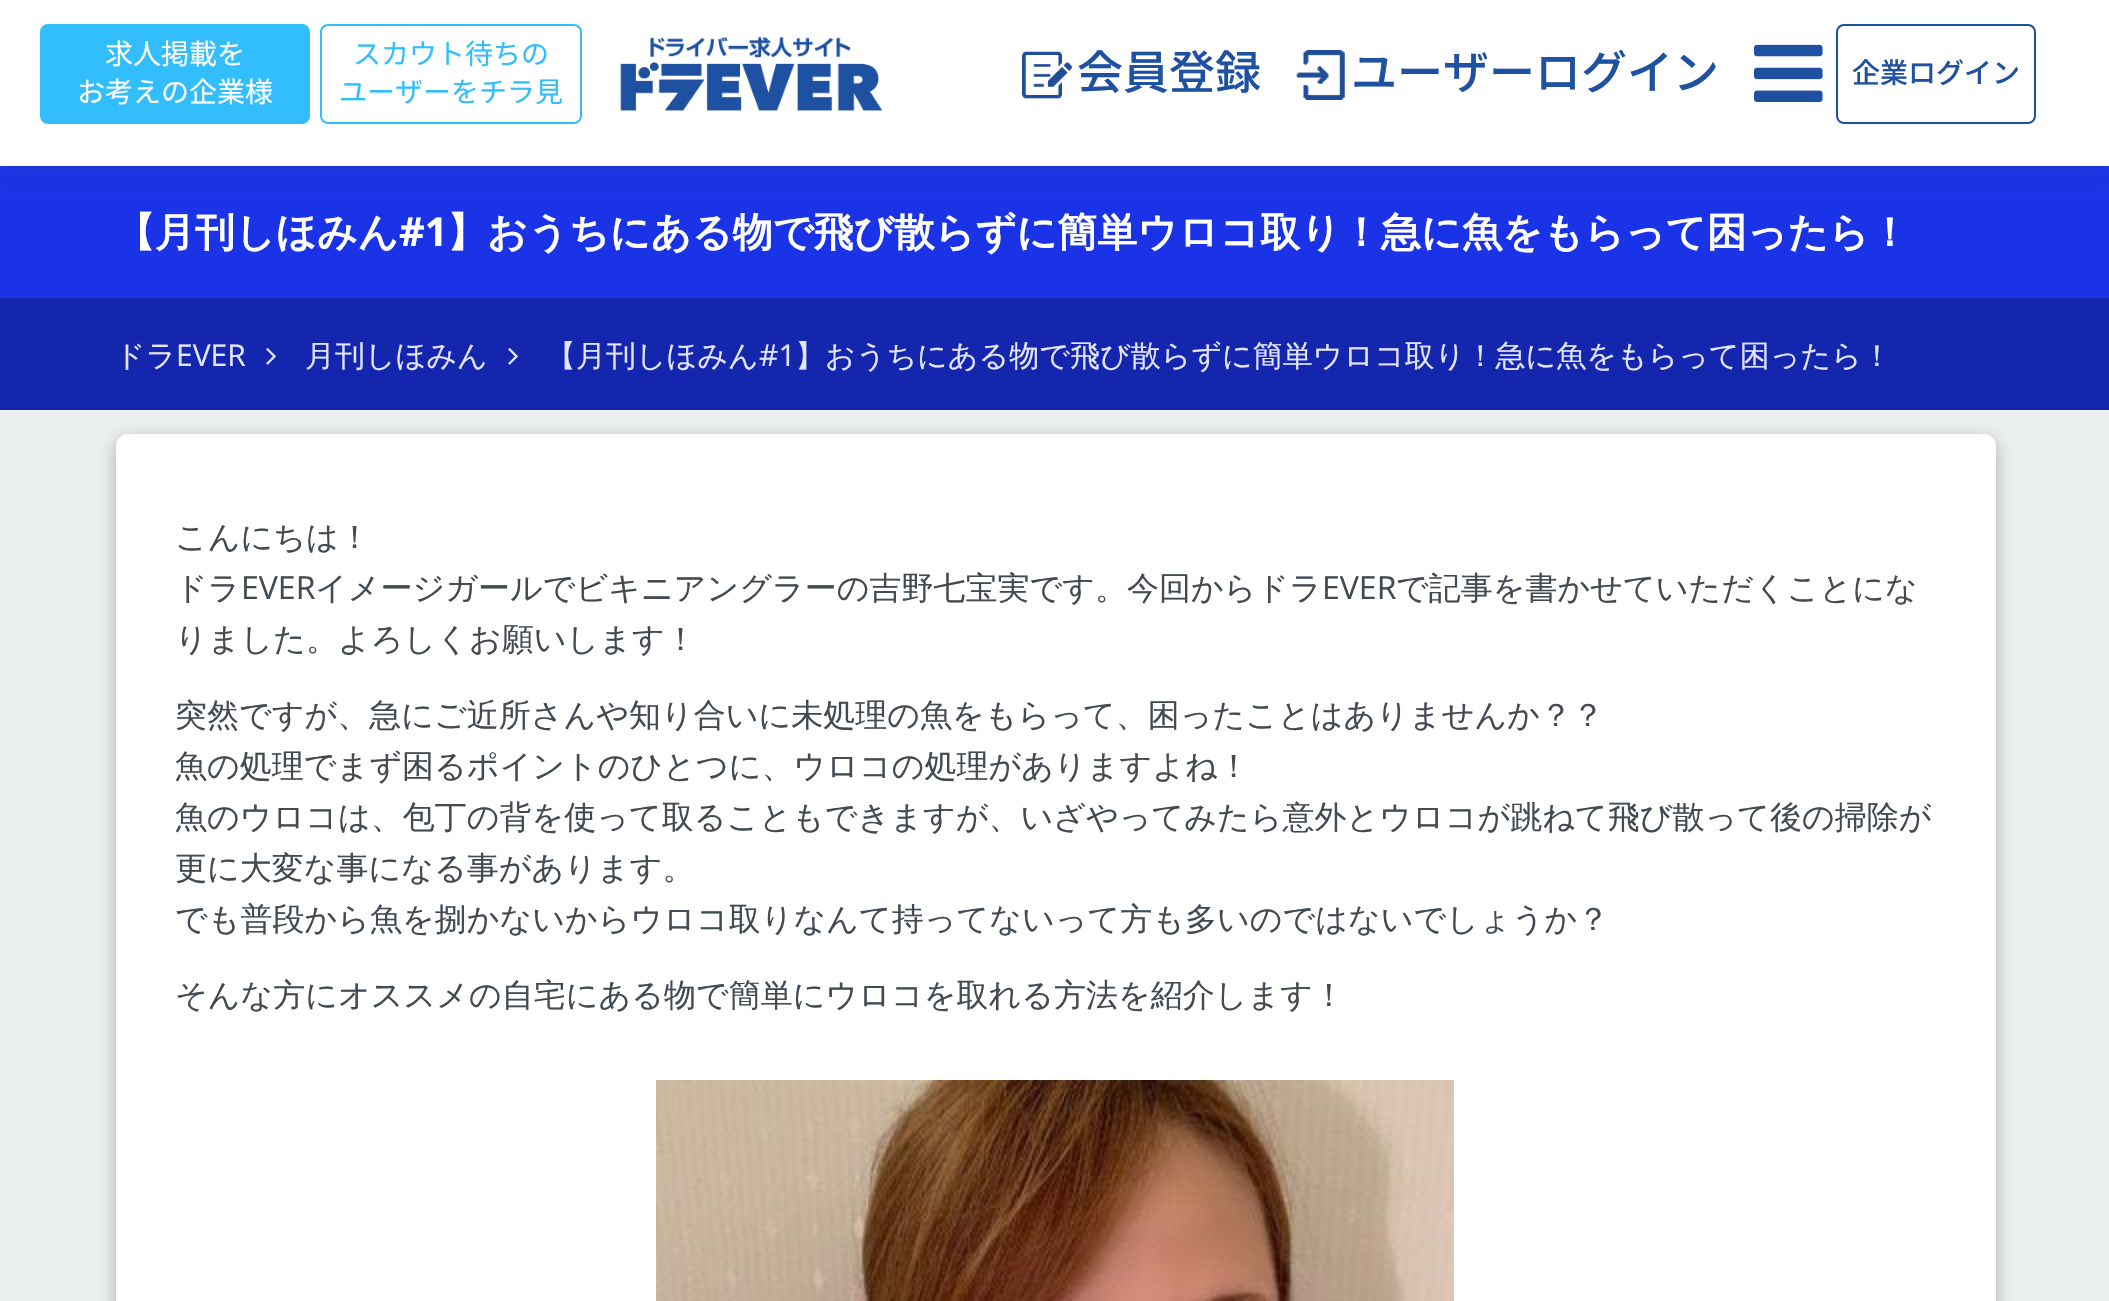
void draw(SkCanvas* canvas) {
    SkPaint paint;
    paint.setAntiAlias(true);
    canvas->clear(0xFFECF0F1);
    paint.setColor(0xFF1A33E6);
    canvas->drawRect(SkRect::MakeXYWH(0, 166, 2109, 132), paint);
    paint.setColor(0x261F51A2);
    paint.setMaskFilter(SkMaskFilter::MakeBlur(kNormal_SkBlurStyle, 10));
    canvas->drawRect(SkRect::MakeXYWH(0, 6, 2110, 166), paint);
    paint.setMaskFilter(nullptr);
    paint.setColor(0xFFFFFFFF);
    canvas->drawRect(SkRect::MakeXYWH(0, 0, 2109, 166), paint);
    paint.setColor(0xFF32BEFC);
    canvas->drawRoundRect(SkRect::MakeXYWH(41, 25, 268, 98), 7, 7, paint);
    paint.setStyle(SkPaint::kStroke_Style);
    paint.setStrokeWidth(2);
    canvas->drawRoundRect(SkRect::MakeXYWH(41, 25, 268, 98), 7, 7, paint);
    SkFont font1(fontMgr->matchFamilyStyle("Noto Sans JP", SkFontStyle::Normal()), 28);
    font1.setSubpixel(true);
    paint.setStyle(SkPaint::kFill_Style);
    paint.setColor(0xFFFFFFFF);
    canvas->drawString("求人掲載を", 105, 64, font1, paint);
    canvas->drawString("お考えの企業様", 77, 102, font1, paint);
    paint.setStyle(SkPaint::kStroke_Style);
    paint.setColor(0xFF32BEFC);
    canvas->drawRoundRect(SkRect::MakeXYWH(321, 25, 260, 98), 7, 7, paint);
    paint.setStyle(SkPaint::kFill_Style);
    canvas->drawString("スカウト待ちの", 353, 64, font1, paint);
    canvas->drawString("ユーザーをチラ見", 339, 102, font1, paint);
    canvas->drawImageRect(SkImages::DeferredFromEncodedData(SkData::MakeFromFileName("img1.png")), SkRect::MakeXYWH(620, 36, 263, 75), SkSamplingOptions());
    canvas->drawImageRect(SkImages::DeferredFromEncodedData(SkData::MakeFromFileName("img2.png")), SkRect::MakeXYWH(1022, 51, 50, 48), SkSamplingOptions());
    SkFont font2(fontMgr->matchFamilyStyle("Noto Sans JP", SkFontStyle(500, SkFontStyle::kNormal_Width, SkFontStyle::kUpright_Slant)), 46);
    font2.setSubpixel(true);
    paint.setColor(0xFF1F51A2);
    canvas->drawString("会員登録", 1077, 89, font2, paint);
    canvas->drawImageRect(SkImages::DeferredFromEncodedData(SkData::MakeFromFileName("img3.png")), SkRect::MakeXYWH(1296, 50, 49, 50), SkSamplingOptions());
    canvas->drawString("ユーザーログイン", 1351, 89, font2, paint);
    canvas->drawImageRect(SkImages::DeferredFromEncodedData(SkData::MakeFromFileName("img4.png")), SkRect::MakeXYWH(1754, 44, 69, 58), SkSamplingOptions());
    paint.setStyle(SkPaint::kStroke_Style);
    canvas->drawRoundRect(SkRect::MakeXYWH(1837, 25, 198, 98), 7, 7, paint);
    SkFont font3(fontMgr->matchFamilyStyle("Noto Sans JP", SkFontStyle(500, SkFontStyle::kNormal_Width, SkFontStyle::kUpright_Slant)), 28);
    font3.setSubpixel(true);
    paint.setStyle(SkPaint::kFill_Style);
    canvas->drawString("企業ログイン", 1852, 83, font3, paint);
    paint.setColor(0xFFEEEEEE);
    canvas->drawRect(SkRect::MakeXYWH(86, 432, 1940, 2), paint);
    SkFont font4(fontMgr->matchFamilyStyle("WenQuanYi Zen Hei", SkFontStyle::Bold()), 40);
    font4.setSubpixel(true);
    paint.setColor(0xFFFFFFFF);
    canvas->drawString("【月刊しほみん", 115, 246, font4, paint);
    SkFont font5(fontMgr->matchFamilyStyle("Open Sans", SkFontStyle::Bold()), 40);
    font5.setSubpixel(true);
    canvas->drawString("#1", 399, 246, font5, paint);
    canvas->drawString("】おうちにある物で飛び散らずに簡単ウロコ取り！急に魚をもらって困ったら！", 447, 246, font4, paint);
    paint.setColor(0xFF1426AD);
    canvas->drawRect(SkRect::MakeXYWH(0, 298, 2109, 112), paint);
    SkFont font6(fontMgr->matchFamilyStyle("WenQuanYi Zen Hei", SkFontStyle(500, SkFontStyle::kNormal_Width, SkFontStyle::kUpright_Slant)), 30);
    font6.setSubpixel(true);
    paint.setColor(0xFFE2E5FF);
    canvas->drawString("ドラ", 115, 366, font6, paint);
    SkFont font7(fontMgr->matchFamilyStyle("Open Sans", SkFontStyle::Normal()), 30);
    font7.setSubpixel(true);
    canvas->drawString("EVER", 176, 366, font7, paint);
    canvas->drawImageRect(SkImages::DeferredFromEncodedData(SkData::MakeFromFileName("img5.png")), SkRect::MakeXYWH(266, 348, 10, 17), SkSamplingOptions());
    canvas->drawString("月刊しほみん", 305, 366, font6, paint);
    canvas->drawImageRect(SkImages::DeferredFromEncodedData(SkData::MakeFromFileName("img5.png")), SkRect::MakeXYWH(508, 348, 10, 17), SkSamplingOptions());
    canvas->drawString("【月刊しほみん", 546, 366, font6, paint);
    canvas->drawString("#1", 759, 366, font7, paint);
    canvas->drawString("】おうちにある物で飛び散らずに簡単ウロコ取り！急に魚をもらって困ったら！", 795, 366, font6, paint);
    paint.setColor(0x1A000000);
    paint.setMaskFilter(SkMaskFilter::MakeBlur(kNormal_SkBlurStyle, 9));
    canvas->drawRoundRect(SkRect::MakeXYWH(116, 440, 1880, 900), 12, 12, paint);
    paint.setMaskFilter(nullptr);
    paint.setColor(0x33000000);
    paint.setMaskFilter(SkMaskFilter::MakeBlur(kNormal_SkBlurStyle, 9));
    canvas->drawRoundRect(SkRect::MakeXYWH(116, 440, 1880, 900), 12, 12, paint);
    paint.setMaskFilter(nullptr);
    paint.setColor(0xFFFFFFFF);
    canvas->drawRoundRect(SkRect::MakeXYWH(116, 434, 1880, 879), 12, 12, paint);
    SkFont font8(fontMgr->matchFamilyStyle("WenQuanYi Zen Hei", SkFontStyle(500, SkFontStyle::kNormal_Width, SkFontStyle::kUpright_Slant)), 32);
    font8.setSubpixel(true);
    paint.setColor(0xFF434A52);
    canvas->drawString("こんにちは！", 175, 548, font8, paint);
    canvas->drawString("ドラ", 175, 599, font8, paint);
    SkFont font9(fontMgr->matchFamilyStyle("Open Sans", SkFontStyle::Normal()), 32);
    font9.setSubpixel(true);
    canvas->drawString("EVER", 241, 599, font9, paint);
    canvas->drawString("イメージガールでビキニアングラーの吉野七宝実です。今回からドラ", 315, 599, font8, paint);
    canvas->drawString("EVER", 1322, 599, font9, paint);
    canvas->drawString("で記事を書かせていただくことにな", 1396, 599, font8, paint);
    canvas->drawString("りました。よろしくお願いします！", 175, 650, font8, paint);
    canvas->drawString("突然ですが、急にご近所さんや知り合いに未処理の魚をもらって、困ったことはありませんか？？", 175, 726, font8, paint);
    canvas->drawString("魚の処理でまず困るポイントのひとつに、ウロコの処理がありますよね！", 175, 777, font8, paint);
    canvas->drawString("魚のウロコは、包丁の背を使って取ることもできますが、いざやってみたら意外とウロコが跳ねて飛び散って後の掃除が", 175, 828, font8, paint);
    canvas->drawString("更に大変な事になる事があります。", 175, 879, font8, paint);
    canvas->drawString("でも普段から魚を捌かないからウロコ取りなんて持ってないって方も多いのではないでしょうか？", 175, 930, font8, paint);
    canvas->drawString("そんな方にオススメの自宅にある物で簡単にウロコを取れる方法を紹介します！", 175, 1006, font8, paint);
    canvas->drawImageRect(SkImages::DeferredFromEncodedData(SkData::MakeFromFileName("img6.png")), SkRect::MakeXYWH(656, 1080, 798, 221), SkSamplingOptions());
}
